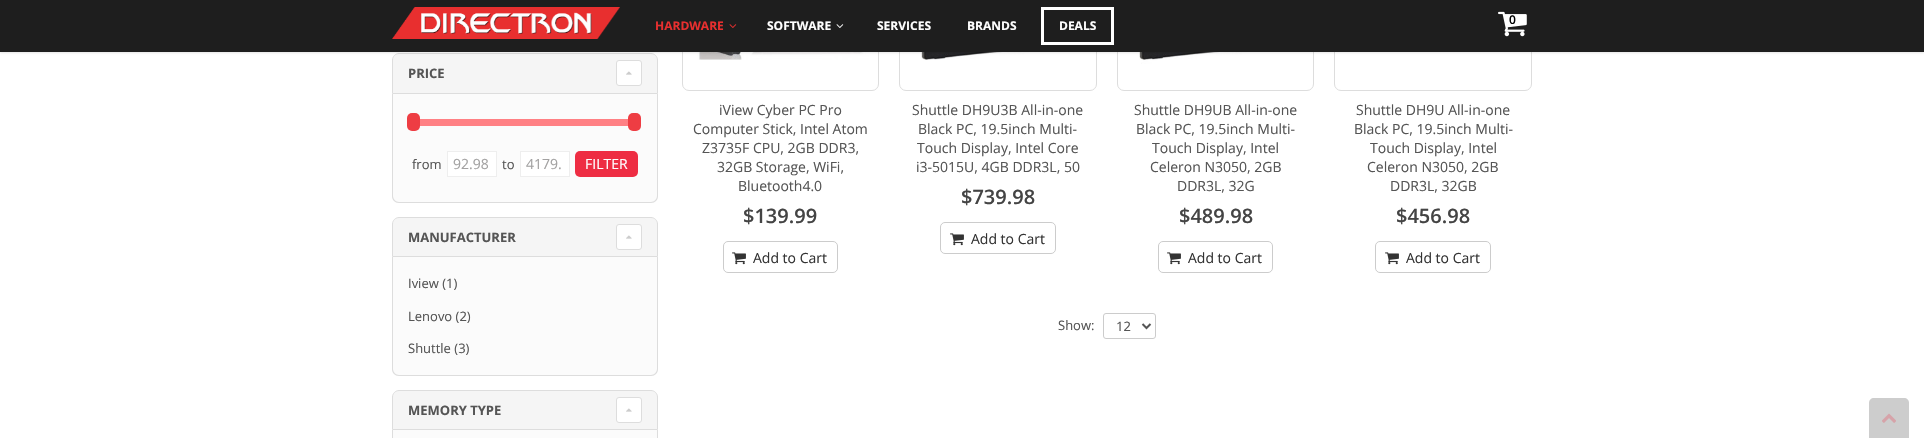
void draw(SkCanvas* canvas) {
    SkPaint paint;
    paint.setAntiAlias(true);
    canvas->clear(0xFFFFFFFF);
    paint.setColor(0xFFF5F5F5);
    canvas->drawPath(SkPathBuilder().moveTo(399, 53.5f).lineTo(651, 53.5f).cubicTo(654.5f, 53.5f, 657.5f, 56.5f, 657.5f, 60).lineTo(657.5f, 93.5f).lineTo(392.5f, 93.5f).lineTo(392.5f, 60).cubicTo(392.5f, 56.5f, 395.5f, 53.5f, 399, 53.5f).close().detach(), paint);
    paint.setStyle(SkPaint::kStroke_Style);
    paint.setStrokeWidth(1);
    paint.setColor(0xFFDDDDDD);
    canvas->drawPath(SkPathBuilder().moveTo(399, 53.5f).lineTo(651, 53.5f).cubicTo(654.5f, 53.5f, 657.5f, 56.5f, 657.5f, 60).lineTo(657.5f, 93.5f).lineTo(392.5f, 93.5f).lineTo(392.5f, 60).cubicTo(392.5f, 56.5f, 395.5f, 53.5f, 399, 53.5f).close().detach(), paint);
    canvas->drawRoundRect(SkRect::MakeXYWH(682.5f, -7.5f, 196, 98), 6.5f, 6.5f, paint);
    canvas->drawImageRect(SkImages::DeferredFromEncodedData(SkData::MakeFromFileName("img6.png")), SkRect::MakeXYWH(697, 52, 172, 8), SkSamplingOptions());
    canvas->drawRoundRect(SkRect::MakeXYWH(899.5f, -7.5f, 197, 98), 6.5f, 6.5f, paint);
    canvas->drawImageRect(SkImages::DeferredFromEncodedData(SkData::MakeFromFileName("img8.png")), SkRect::MakeXYWH(921, 52, 159, 8), SkSamplingOptions());
    canvas->drawRoundRect(SkRect::MakeXYWH(1117.5f, -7.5f, 196, 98), 6.5f, 6.5f, paint);
    canvas->drawImageRect(SkImages::DeferredFromEncodedData(SkData::MakeFromFileName("img9.png")), SkRect::MakeXYWH(1139, 52, 158, 12), SkSamplingOptions());
    canvas->drawRoundRect(SkRect::MakeXYWH(1334.5f, -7.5f, 197, 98), 6.5f, 6.5f, paint);
    paint.setStyle(SkPaint::kFill_Style);
    paint.setColor(0x1A000000);
    paint.setMaskFilter(SkMaskFilter::MakeBlur(kNormal_SkBlurStyle, 1));
    canvas->drawRect(SkRect::MakeXYWH(0, 1, 1924, 52), paint);
    paint.setMaskFilter(nullptr);
    paint.setColor(0xFF1E1E1E);
    canvas->drawRect(SkRect::MakeXYWH(0, 0, 1924, 52), paint);
    canvas->drawImageRect(SkImages::DeferredFromEncodedData(SkData::MakeFromFileName("img1.png")), SkRect::MakeXYWH(392, 7, 228, 32), SkSamplingOptions());
    canvas->drawImageRect(SkImages::DeferredFromEncodedData(SkData::MakeFromFileName("img2.png")), SkRect::MakeXYWH(1498, 11, 29, 26), SkSamplingOptions());
    SkFont font1(fontMgr->matchFamilyStyle("Open Sans", SkFontStyle(600, SkFontStyle::kNormal_Width, SkFontStyle::kUpright_Slant)), 12);
    font1.setSubpixel(true);
    paint.setColor(0xFF000000);
    canvas->drawString("0", 1509, 24, font1, paint);
    SkFont font2(fontMgr->matchFamilyStyle("Open Sans", SkFontStyle::Bold()), 12);
    font2.setSubpixel(true);
    paint.setColor(0xFFE82F2F);
    canvas->drawString("HARDWARE", 655, 30, font2, paint);
    canvas->drawImageRect(SkImages::DeferredFromEncodedData(SkData::MakeFromFileName("img3.png")), SkRect::MakeXYWH(729, 24, 8, 4), SkSamplingOptions());
    paint.setColor(0xFFFFFFFF);
    canvas->drawString("SOFTWARE", 767, 30, font2, paint);
    canvas->drawImageRect(SkImages::DeferredFromEncodedData(SkData::MakeFromFileName("img4.png")), SkRect::MakeXYWH(836, 24, 8, 4), SkSamplingOptions());
    canvas->drawString("SERVICES", 877, 30, font2, paint);
    canvas->drawString("BRANDS", 967, 30, font2, paint);
    paint.setStyle(SkPaint::kStroke_Style);
    paint.setStrokeWidth(3);
    canvas->drawRect(SkRect::MakeXYWH(1042.5f, 8.5f, 70, 35), paint);
    paint.setStyle(SkPaint::kFill_Style);
    canvas->drawString("DEALS", 1059, 30, font2, paint);
    SkFont font3(fontMgr->matchFamilyStyle("Open Sans", SkFontStyle::Bold()), 13);
    font3.setSubpixel(true);
    paint.setColor(0xFF555555);
    canvas->drawString("PRICE", 408, 78, font3, paint);
    paint.setColor(0xFFFFFFFF);
    canvas->drawRoundRect(SkRect::MakeXYWH(616.5f, 60.5f, 25, 25), 2.5f, 2.5f, paint);
    paint.setStyle(SkPaint::kStroke_Style);
    paint.setStrokeWidth(1);
    paint.setColor(0xFFDDDDDD);
    canvas->drawRoundRect(SkRect::MakeXYWH(616.5f, 60.5f, 25, 25), 2.5f, 2.5f, paint);
    canvas->drawImageRect(SkImages::DeferredFromEncodedData(SkData::MakeFromFileName("img5.png")), SkRect::MakeXYWH(626, 71, 6, 4), SkSamplingOptions());
    paint.setStyle(SkPaint::kFill_Style);
    paint.setColor(0xFFFBFBFB);
    canvas->drawPath(SkPathBuilder().moveTo(392, 94).lineTo(658, 94).lineTo(658, 196).cubicTo(658, 200, 655, 203, 651, 203).lineTo(399, 203).cubicTo(395, 203, 392, 200, 392, 196).close().detach(), paint);
    paint.setColor(0xFFDDDDDD);
    canvas->drawPath(SkPathBuilder(SkPathFillType::kEvenOdd).moveTo(392, 94).lineTo(658, 94).lineTo(658, 196).cubicTo(658, 200, 655, 203, 651, 203).lineTo(399, 203).cubicTo(395, 203, 392, 200, 392, 196).close().moveTo(393, 94).lineTo(657, 94).lineTo(657, 196).cubicTo(657, 199, 654, 202, 651, 202).lineTo(399, 202).cubicTo(396, 202, 393, 199, 393, 196).close().detach(), paint);
    paint.setColor(0xFFFF8084);
    canvas->drawRect(SkRect::MakeXYWH(416, 119, 212, 7), paint);
    paint.setColor(0xFFEE3D43);
    canvas->drawRoundRect(SkRect::MakeXYWH(407, 113, 13, 18), 5, 5, paint);
    canvas->drawRoundRect(SkRect::MakeXYWH(628, 113, 13, 18), 5, 5, paint);
    SkFont font4(fontMgr->matchFamilyStyle("Open Sans", SkFontStyle::Normal()), 13);
    font4.setSubpixel(true);
    paint.setColor(0xFF555555);
    canvas->drawString("from", 412, 169, font4, paint);
    paint.setColor(0xFFFFFFFF);
    canvas->drawRect(SkRect::MakeXYWH(447.5f, 151.5f, 49, 25), paint);
    paint.setStyle(SkPaint::kStroke_Style);
    paint.setColor(0xFFEEEEEE);
    canvas->drawRect(SkRect::MakeXYWH(447.5f, 151.5f, 49, 25), paint);
    SkFont font5(fontMgr->matchFamilyStyle("Open Sans", SkFontStyle::Normal()), 14);
    font5.setSubpixel(true);
    paint.setStyle(SkPaint::kFill_Style);
    paint.setColor(0xFFA3A2A2);
    canvas->drawString("92.98", 453, 169, font5, paint);
    paint.setColor(0xFF555555);
    canvas->drawString("to", 502, 169, font4, paint);
    paint.setColor(0xFFFFFFFF);
    canvas->drawRect(SkRect::MakeXYWH(520.5f, 151.5f, 49, 25), paint);
    paint.setStyle(SkPaint::kStroke_Style);
    paint.setColor(0xFFEEEEEE);
    canvas->drawRect(SkRect::MakeXYWH(520.5f, 151.5f, 49, 25), paint);
    paint.setStyle(SkPaint::kFill_Style);
    paint.setColor(0xFFA3A2A2);
    canvas->drawString("4179.", 526, 169, font5, paint);
    paint.setColor(0xFFEE2D43);
    canvas->drawRoundRect(SkRect::MakeXYWH(575, 151, 63, 26), 5, 5, paint);
    paint.setColor(0xFFFFFFFF);
    canvas->drawString("FILTER", 585, 169, font5, paint);
    paint.setColor(0xFFF5F5F5);
    canvas->drawPath(SkPathBuilder().moveTo(399, 217.5f).lineTo(651, 217.5f).cubicTo(654.5f, 217.5f, 657.5f, 220.5f, 657.5f, 224).lineTo(657.5f, 256.5f).lineTo(392.5f, 256.5f).lineTo(392.5f, 224).cubicTo(392.5f, 220.5f, 395.5f, 217.5f, 399, 217.5f).close().detach(), paint);
    paint.setStyle(SkPaint::kStroke_Style);
    paint.setColor(0xFFDDDDDD);
    canvas->drawPath(SkPathBuilder().moveTo(399, 217.5f).lineTo(651, 217.5f).cubicTo(654.5f, 217.5f, 657.5f, 220.5f, 657.5f, 224).lineTo(657.5f, 256.5f).lineTo(392.5f, 256.5f).lineTo(392.5f, 224).cubicTo(392.5f, 220.5f, 395.5f, 217.5f, 399, 217.5f).close().detach(), paint);
    paint.setStyle(SkPaint::kFill_Style);
    paint.setColor(0xFF555555);
    canvas->drawString("MANUFACTURER", 408, 242, font3, paint);
    paint.setColor(0xFFFFFFFF);
    canvas->drawRoundRect(SkRect::MakeXYWH(616.5f, 224.5f, 25, 25), 2.5f, 2.5f, paint);
    paint.setStyle(SkPaint::kStroke_Style);
    paint.setColor(0xFFDDDDDD);
    canvas->drawRoundRect(SkRect::MakeXYWH(616.5f, 224.5f, 25, 25), 2.5f, 2.5f, paint);
    canvas->drawImageRect(SkImages::DeferredFromEncodedData(SkData::MakeFromFileName("img5.png")), SkRect::MakeXYWH(626, 235, 6, 4), SkSamplingOptions());
    paint.setStyle(SkPaint::kFill_Style);
    paint.setColor(0xFFFBFBFB);
    canvas->drawPath(SkPathBuilder().moveTo(392, 257).lineTo(658, 257).lineTo(658, 369).cubicTo(658, 373, 655, 376, 651, 376).lineTo(399, 376).cubicTo(395, 376, 392, 373, 392, 369).close().detach(), paint);
    paint.setColor(0xFFDDDDDD);
    canvas->drawPath(SkPathBuilder(SkPathFillType::kEvenOdd).moveTo(392, 257).lineTo(658, 257).lineTo(658, 369).cubicTo(658, 373, 655, 376, 651, 376).lineTo(399, 376).cubicTo(395, 376, 392, 373, 392, 369).close().moveTo(393, 257).lineTo(657, 257).lineTo(657, 369).cubicTo(657, 372, 654, 375, 651, 375).lineTo(399, 375).cubicTo(396, 375, 393, 372, 393, 369).close().detach(), paint);
    paint.setColor(0xFF555555);
    canvas->drawString("Iview (1)", 408, 288, font4, paint);
    canvas->drawString("Lenovo (2)", 408, 321, font4, paint);
    canvas->drawString("Shuttle (3)", 408, 353, font4, paint);
    paint.setColor(0xFFF5F5F5);
    canvas->drawPath(SkPathBuilder().moveTo(399, 390.5f).lineTo(651, 390.5f).cubicTo(654.5f, 390.5f, 657.5f, 393.5f, 657.5f, 397).lineTo(657.5f, 429.5f).lineTo(392.5f, 429.5f).lineTo(392.5f, 397).cubicTo(392.5f, 393.5f, 395.5f, 390.5f, 399, 390.5f).close().detach(), paint);
    paint.setStyle(SkPaint::kStroke_Style);
    paint.setColor(0xFFDDDDDD);
    canvas->drawPath(SkPathBuilder().moveTo(399, 390.5f).lineTo(651, 390.5f).cubicTo(654.5f, 390.5f, 657.5f, 393.5f, 657.5f, 397).lineTo(657.5f, 429.5f).lineTo(392.5f, 429.5f).lineTo(392.5f, 397).cubicTo(392.5f, 393.5f, 395.5f, 390.5f, 399, 390.5f).close().detach(), paint);
    paint.setStyle(SkPaint::kFill_Style);
    paint.setColor(0xFF555555);
    canvas->drawString("MEMORY TYPE", 408, 415, font3, paint);
    paint.setColor(0xFFFFFFFF);
    canvas->drawRoundRect(SkRect::MakeXYWH(616.5f, 397.5f, 25, 25), 2.5f, 2.5f, paint);
    paint.setStyle(SkPaint::kStroke_Style);
    paint.setColor(0xFFDDDDDD);
    canvas->drawRoundRect(SkRect::MakeXYWH(616.5f, 397.5f, 25, 25), 2.5f, 2.5f, paint);
    canvas->drawImageRect(SkImages::DeferredFromEncodedData(SkData::MakeFromFileName("img5.png")), SkRect::MakeXYWH(626, 408, 6, 4), SkSamplingOptions());
    paint.setStyle(SkPaint::kFill_Style);
    paint.setColor(0xFFFBFBFB);
    canvas->drawRect(SkRect::MakeXYWH(392, 430, 266, 8), paint);
    paint.setColor(0xFFDDDDDD);
    canvas->drawPath(SkPathBuilder(SkPathFillType::kEvenOdd).moveTo(392, 430).lineTo(658, 430).lineTo(658, 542).cubicTo(658, 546, 655, 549, 651, 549).lineTo(399, 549).cubicTo(395, 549, 392, 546, 392, 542).close().moveTo(393, 430).lineTo(657, 430).lineTo(657, 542).cubicTo(657, 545, 654, 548, 651, 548).lineTo(399, 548).cubicTo(396, 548, 393, 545, 393, 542).close().detach(), paint);
    paint.setColor(0xFF555555);
    canvas->drawString("iView Cyber PC Pro", 719, 115, font5, paint);
    canvas->drawString("Computer Stick, Intel Atom", 693, 134, font5, paint);
    canvas->drawString("Z3735F CPU, 2GB DDR3,", 702, 153, font5, paint);
    canvas->drawString("32GB Storage, WiFi,", 717, 172, font5, paint);
    canvas->drawString("Bluetooth4.0", 738, 191, font5, paint);
    SkFont font6(fontMgr->matchFamilyStyle("Open Sans", SkFontStyle(600, SkFontStyle::kNormal_Width, SkFontStyle::kUpright_Slant)), 20);
    font6.setSubpixel(true);
    paint.setColor(0xFF444444);
    canvas->drawString("$139.99", 743, 223, font6, paint);
    paint.setStyle(SkPaint::kStroke_Style);
    paint.setColor(0xFFCCCCCC);
    canvas->drawRoundRect(SkRect::MakeXYWH(723.5f, 241.5f, 114, 31), 4.5f, 4.5f, paint);
    canvas->drawImageRect(SkImages::DeferredFromEncodedData(SkData::MakeFromFileName("img7.png")), SkRect::MakeXYWH(732, 252, 14, 13), SkSamplingOptions());
    paint.setStyle(SkPaint::kFill_Style);
    paint.setColor(0xFF333333);
    canvas->drawString("Add to Cart", 753, 263, font5, paint);
    paint.setColor(0xFF555555);
    canvas->drawString("Shuttle DH9U3B All-in-one", 912, 115, font5, paint);
    canvas->drawString("Black PC, 19.5inch Multi-", 918, 134, font5, paint);
    canvas->drawString("Touch Display, Intel Core", 917, 153, font5, paint);
    canvas->drawString("i3-5015U, 4GB DDR3L, 50", 916, 172, font5, paint);
    paint.setColor(0xFF444444);
    canvas->drawString("$739.98", 961, 204, font6, paint);
    paint.setStyle(SkPaint::kStroke_Style);
    paint.setColor(0xFFCCCCCC);
    canvas->drawRoundRect(SkRect::MakeXYWH(940.5f, 222.5f, 115, 31), 4.5f, 4.5f, paint);
    canvas->drawImageRect(SkImages::DeferredFromEncodedData(SkData::MakeFromFileName("img7.png")), SkRect::MakeXYWH(950, 233, 14, 13), SkSamplingOptions());
    paint.setStyle(SkPaint::kFill_Style);
    paint.setColor(0xFF333333);
    canvas->drawString("Add to Cart", 971, 244, font5, paint);
    paint.setColor(0xFF555555);
    canvas->drawString("Shuttle DH9UB All-in-one", 1134, 115, font5, paint);
    canvas->drawString("Black PC, 19.5inch Multi-", 1136, 134, font5, paint);
    canvas->drawString("Touch Display, Intel", 1152, 153, font5, paint);
    canvas->drawString("Celeron N3050, 2GB", 1150, 172, font5, paint);
    canvas->drawString("DDR3L, 32G", 1177, 191, font5, paint);
    paint.setColor(0xFF444444);
    canvas->drawString("$489.98", 1179, 223, font6, paint);
    paint.setStyle(SkPaint::kStroke_Style);
    paint.setColor(0xFFCCCCCC);
    canvas->drawRoundRect(SkRect::MakeXYWH(1158.5f, 241.5f, 114, 31), 4.5f, 4.5f, paint);
    canvas->drawImageRect(SkImages::DeferredFromEncodedData(SkData::MakeFromFileName("img7.png")), SkRect::MakeXYWH(1167, 252, 14, 13), SkSamplingOptions());
    paint.setStyle(SkPaint::kFill_Style);
    paint.setColor(0xFF333333);
    canvas->drawString("Add to Cart", 1188, 263, font5, paint);
    paint.setColor(0xFF555555);
    canvas->drawString("Shuttle DH9U All-in-one", 1356, 115, font5, paint);
    canvas->drawString("Black PC, 19.5inch Multi-", 1354, 134, font5, paint);
    canvas->drawString("Touch Display, Intel", 1370, 153, font5, paint);
    canvas->drawString("Celeron N3050, 2GB", 1367, 172, font5, paint);
    canvas->drawString("DDR3L, 32GB", 1390, 191, font5, paint);
    paint.setColor(0xFF444444);
    canvas->drawString("$456.98", 1396, 223, font6, paint);
    paint.setStyle(SkPaint::kStroke_Style);
    paint.setColor(0xFFCCCCCC);
    canvas->drawRoundRect(SkRect::MakeXYWH(1375.5f, 241.5f, 115, 31), 4.5f, 4.5f, paint);
    canvas->drawImageRect(SkImages::DeferredFromEncodedData(SkData::MakeFromFileName("img7.png")), SkRect::MakeXYWH(1385, 252, 14, 13), SkSamplingOptions());
    paint.setStyle(SkPaint::kFill_Style);
    paint.setColor(0xFF333333);
    canvas->drawString("Add to Cart", 1406, 263, font5, paint);
    paint.setColor(0xFF555555);
    canvas->drawString("Show:", 1058, 330, font4, paint);
    paint.setStyle(SkPaint::kStroke_Style);
    paint.setColor(0xFFCCCCCC);
    canvas->drawRoundRect(SkRect::MakeXYWH(1103.5f, 313.5f, 52, 25), 2.5f, 2.5f, paint);
    paint.setStrokeWidth(2);
    paint.setColor(0xFF555555);
    canvas->drawPath(SkPathBuilder().moveTo(1142.5f, 324).lineTo(1146.5f, 328).lineTo(1150.5f, 324).detach(), paint);
    paint.setStyle(SkPaint::kFill_Style);
    canvas->drawString("12", 1116, 331, font4, paint);
    paint.setColor(0xFFCDCDCD);
    canvas->drawPath(SkPathBuilder().moveTo(1874, 398).lineTo(1904, 398).cubicTo(1907, 398, 1909, 400, 1909, 403).lineTo(1909, 438).lineTo(1869, 438).lineTo(1869, 403).cubicTo(1869, 400, 1871, 398, 1874, 398).close().detach(), paint);
    canvas->drawImageRect(SkImages::DeferredFromEncodedData(SkData::MakeFromFileName("img10.png")), SkRect::MakeXYWH(1882, 413, 14, 10), SkSamplingOptions());
}
